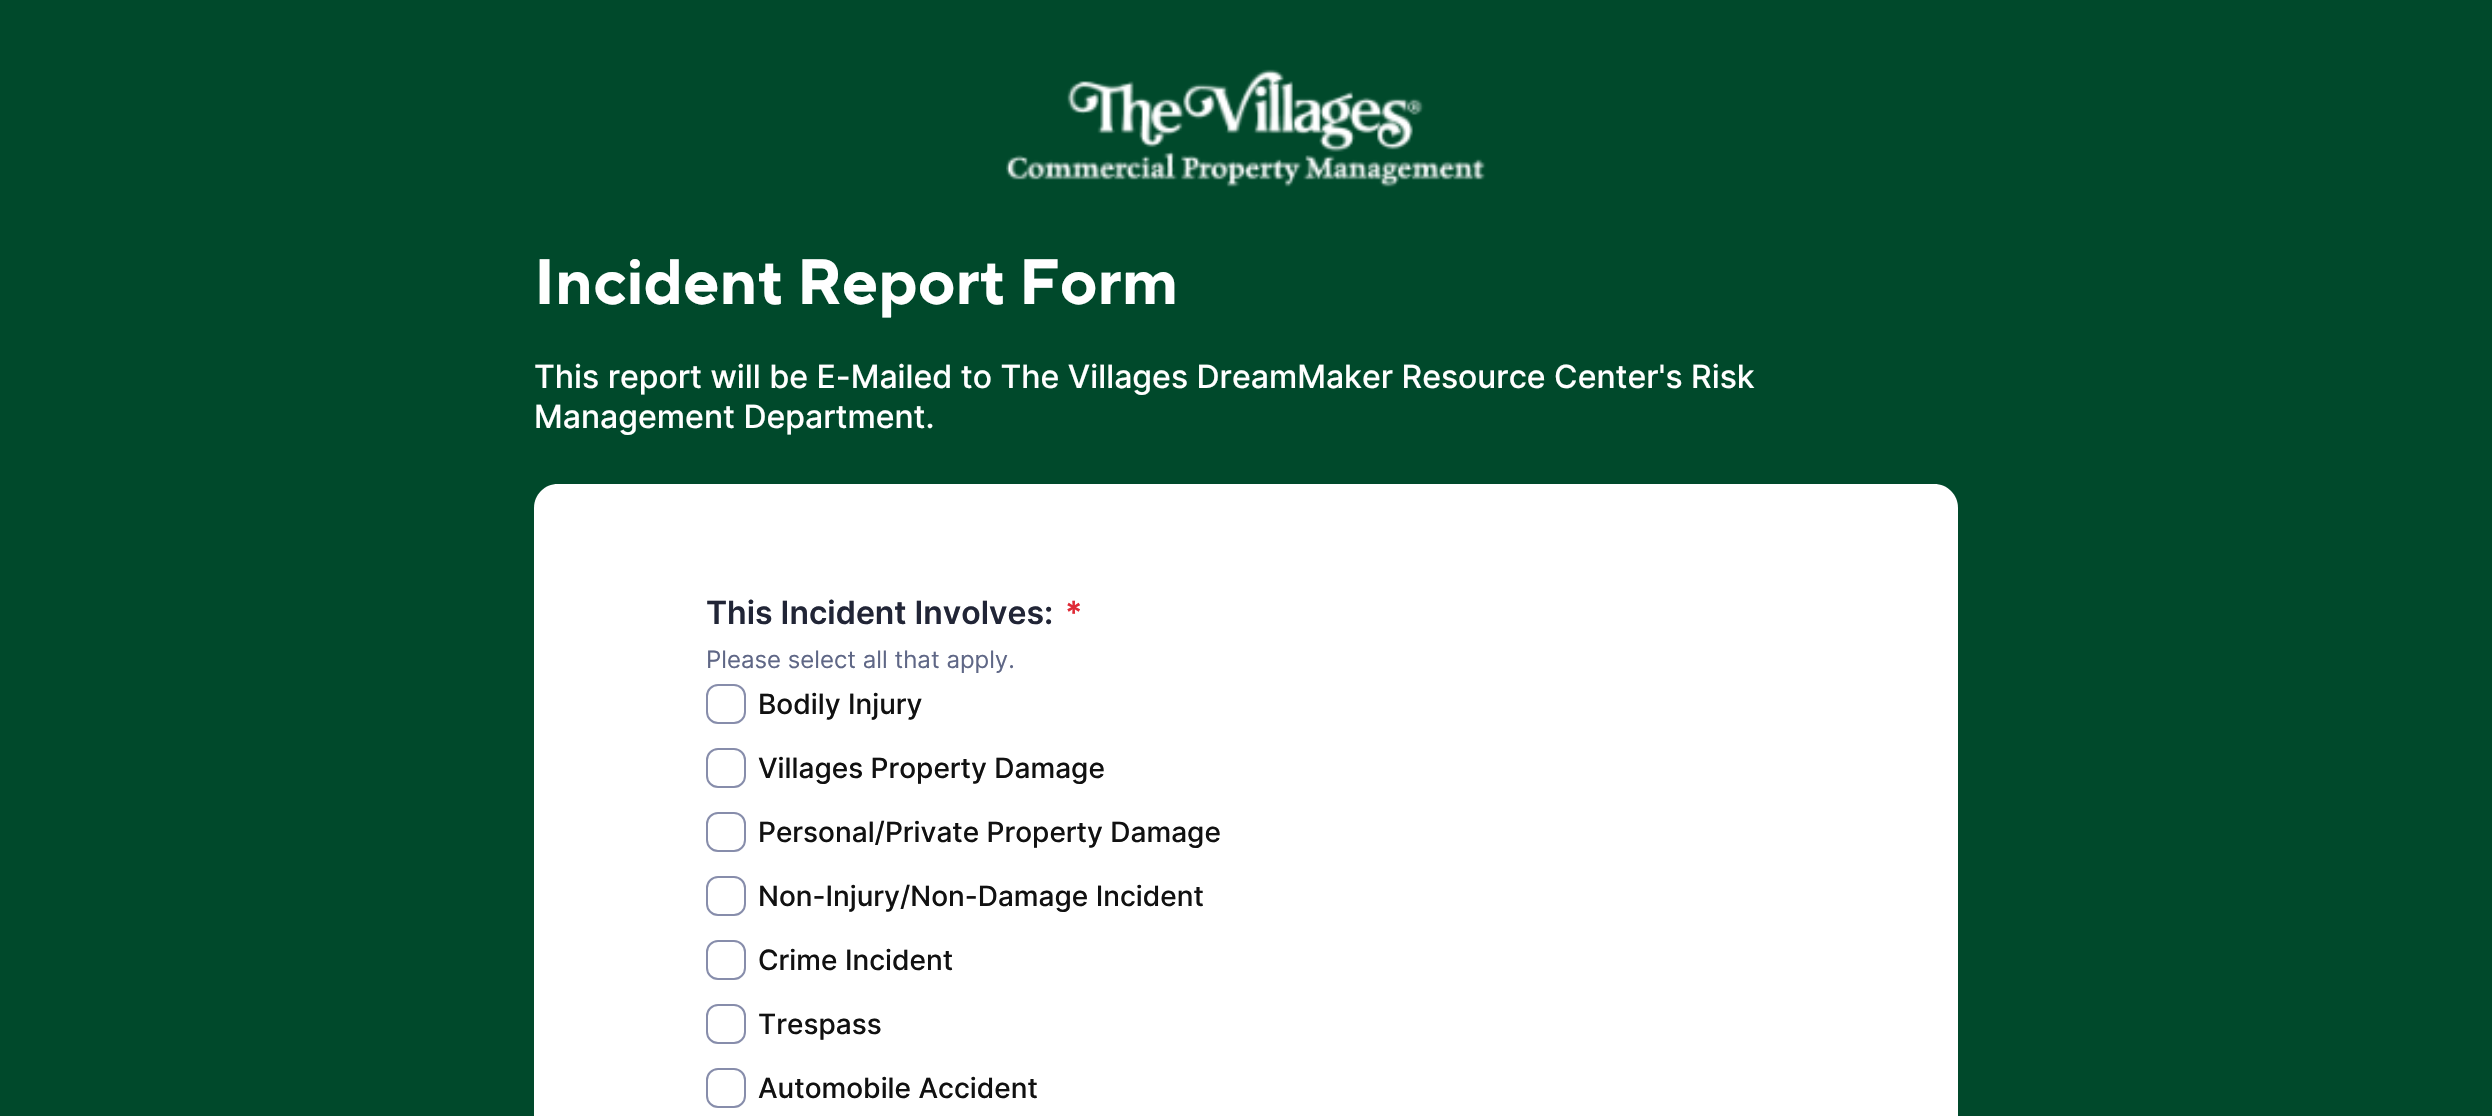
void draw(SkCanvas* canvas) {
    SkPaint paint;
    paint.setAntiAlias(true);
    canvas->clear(0xFF00492B);
    canvas->drawImageRect(SkImages::DeferredFromEncodedData(SkData::MakeFromFileName("img1.png")), SkRect::MakeXYWH(1006, 69, 480, 119), SkSamplingOptions());
    SkFont font1(fontMgr->matchFamilyStyle("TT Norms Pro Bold", SkFontStyle::Bold()), 64);
    font1.setSubpixel(true);
    paint.setColor(0xFFFFFFFF);
    canvas->drawString("Incident Report Form", 534, 304, font1, paint);
    SkFont font2(fontMgr->matchFamilyStyle("Inter", SkFontStyle(500, SkFontStyle::kNormal_Width, SkFontStyle::kUpright_Slant)), 32);
    font2.setSubpixel(true);
    canvas->drawString("This report will be E-Mailed to The Villages DreamMaker Resource Center's Risk", 534, 388, font2, paint);
    canvas->drawString("Management Department.", 534, 428, font2, paint);
    canvas->drawPath(SkPathBuilder().moveTo(558, 484).lineTo(1934, 484).cubicTo(1947.5f, 484, 1958, 494.5f, 1958, 508).lineTo(1958, 1116).lineTo(534, 1116).lineTo(534, 508).cubicTo(534, 494.5f, 544.5f, 484, 558, 484).close().detach(), paint);
    SkFont font3(fontMgr->matchFamilyStyle("Inter", SkFontStyle(600, SkFontStyle::kNormal_Width, SkFontStyle::kUpright_Slant)), 32);
    font3.setSubpixel(true);
    paint.setColor(0xFF212536);
    canvas->drawString("This Incident Involves:", 706, 624, font3, paint);
    paint.setColor(0xFFDF2A36);
    canvas->drawString("*", 1065, 624, font3, paint);
    SkFont font4(fontMgr->matchFamilyStyle("Inter", SkFontStyle::Normal()), 24);
    font4.setSubpixel(true);
    paint.setColor(0xFF5F6786);
    canvas->drawString("Please select all that apply.", 706, 668, font4, paint);
    paint.setStyle(SkPaint::kStroke_Style);
    paint.setStrokeWidth(2);
    paint.setColor(0xFF878DAB);
    canvas->drawRoundRect(SkRect::MakeXYWH(707, 685, 38, 38), 11, 11, paint);
    SkFont font5(fontMgr->matchFamilyStyle("Inter", SkFontStyle(500, SkFontStyle::kNormal_Width, SkFontStyle::kUpright_Slant)), 28);
    font5.setSubpixel(true);
    paint.setStyle(SkPaint::kFill_Style);
    paint.setColor(0xFF111111);
    canvas->drawString("Bodily Injury", 758, 714, font5, paint);
    paint.setStyle(SkPaint::kStroke_Style);
    paint.setColor(0xFF878DAB);
    canvas->drawRoundRect(SkRect::MakeXYWH(707, 749, 38, 38), 11, 11, paint);
    paint.setStyle(SkPaint::kFill_Style);
    paint.setColor(0xFF111111);
    canvas->drawString("Villages Property Damage", 758, 778, font5, paint);
    paint.setStyle(SkPaint::kStroke_Style);
    paint.setColor(0xFF878DAB);
    canvas->drawRoundRect(SkRect::MakeXYWH(707, 813, 38, 38), 11, 11, paint);
    paint.setStyle(SkPaint::kFill_Style);
    paint.setColor(0xFF111111);
    canvas->drawString("Personal/Private Property Damage", 758, 842, font5, paint);
    paint.setStyle(SkPaint::kStroke_Style);
    paint.setColor(0xFF878DAB);
    canvas->drawRoundRect(SkRect::MakeXYWH(707, 877, 38, 38), 11, 11, paint);
    paint.setStyle(SkPaint::kFill_Style);
    paint.setColor(0xFF111111);
    canvas->drawString("Non-Injury/Non-Damage Incident", 758, 906, font5, paint);
    paint.setStyle(SkPaint::kStroke_Style);
    paint.setColor(0xFF878DAB);
    canvas->drawRoundRect(SkRect::MakeXYWH(707, 941, 38, 38), 11, 11, paint);
    paint.setStyle(SkPaint::kFill_Style);
    paint.setColor(0xFF111111);
    canvas->drawString("Crime Incident", 758, 970, font5, paint);
    paint.setStyle(SkPaint::kStroke_Style);
    paint.setColor(0xFF878DAB);
    canvas->drawRoundRect(SkRect::MakeXYWH(707, 1005, 38, 38), 11, 11, paint);
    paint.setStyle(SkPaint::kFill_Style);
    paint.setColor(0xFF111111);
    canvas->drawString("Trespass", 758, 1034, font5, paint);
    paint.setStyle(SkPaint::kStroke_Style);
    paint.setColor(0xFF878DAB);
    canvas->drawRoundRect(SkRect::MakeXYWH(707, 1069, 38, 38), 11, 11, paint);
    paint.setStyle(SkPaint::kFill_Style);
    paint.setColor(0xFF111111);
    canvas->drawString("Automobile Accident", 758, 1098, font5, paint);
}
